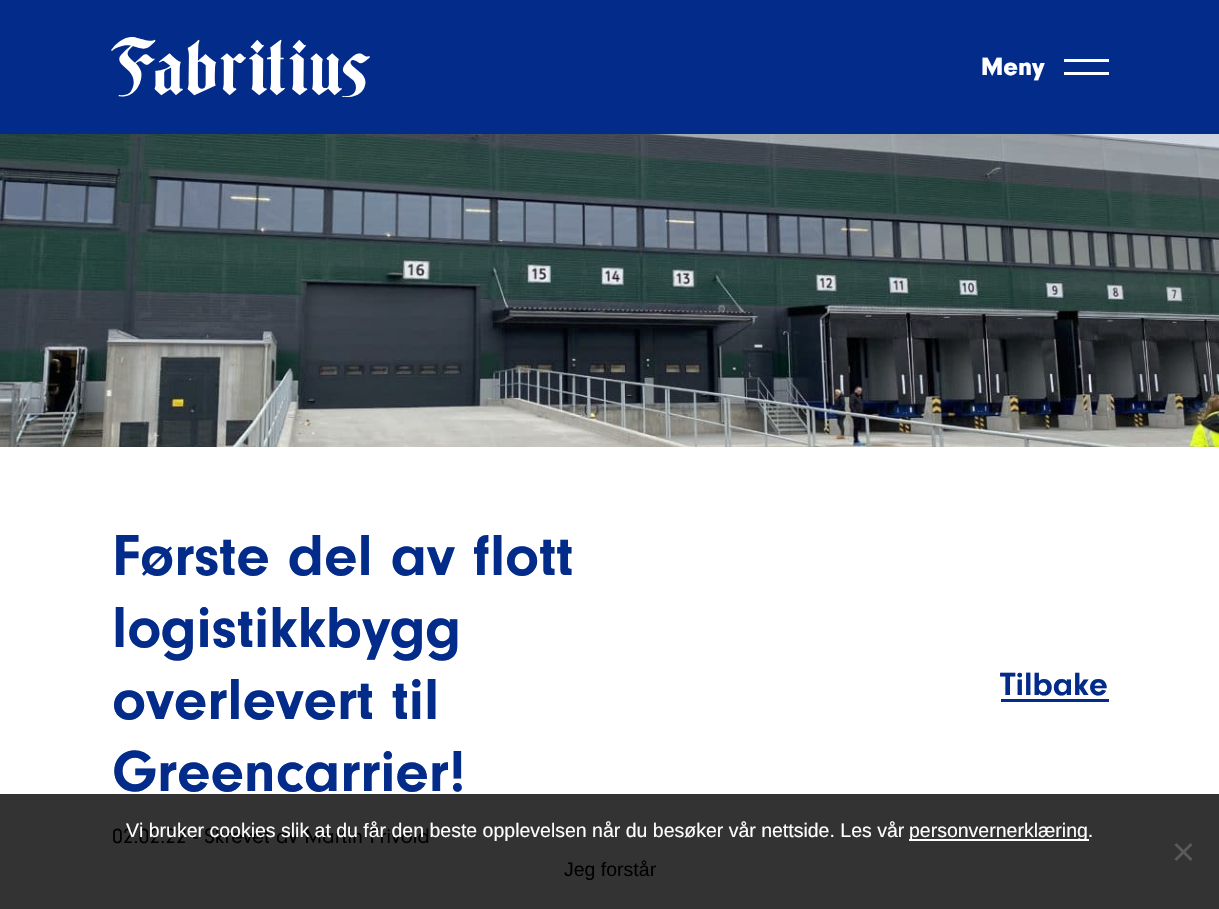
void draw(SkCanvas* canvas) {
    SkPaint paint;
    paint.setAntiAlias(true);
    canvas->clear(0xFFFFFFFF);
    paint.setColor(0xFF333333);
    canvas->drawRect(SkRect::MakeXYWH(0, 794, 1219, 115), paint);
    paint.setColor(0xFF032B8A);
    canvas->drawRect(SkRect::MakeXYWH(0, 0, 1219, 134), paint);
    canvas->drawImageRect(SkImages::DeferredFromEncodedData(SkData::MakeFromFileName("img1.png")), SkRect::MakeXYWH(111, 37, 259, 61), SkSamplingOptions());
    SkFont font1(fontMgr->matchFamilyStyle("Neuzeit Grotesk", SkFontStyle(900, SkFontStyle::kNormal_Width, SkFontStyle::kUpright_Slant)), 26);
    font1.setSubpixel(true);
    paint.setColor(0xFFFFFFFF);
    canvas->drawString("Meny", 981, 75, font1, paint);
    canvas->drawRect(SkRect::MakeXYWH(1064, 59, 45, 3), paint);
    canvas->drawRect(SkRect::MakeXYWH(1064, 72, 45, 3), paint);
    canvas->drawImageRect(SkImages::DeferredFromEncodedData(SkData::MakeFromFileName("img2.png")), SkRect::MakeXYWH(0, 134, 1219, 313), SkSamplingOptions());
    SkFont font2(fontMgr->matchFamilyStyle("Neuzeit Grotesk", SkFontStyle::Bold()), 60);
    font2.setSubpixel(true);
    paint.setColor(0xFF032B8A);
    canvas->drawString("Første del av flott", 112, 575, font2, paint);
    canvas->drawString("logistikkbygg", 112, 647, font2, paint);
    canvas->drawString("overlevert til", 112, 719, font2, paint);
    canvas->drawString("Greencarrier!", 112, 791, font2, paint);
    SkFont font3(fontMgr->matchFamilyStyle("Neuzeit Grotesk", SkFontStyle::Normal()), 21.6f);
    font3.setSubpixel(true);
    paint.setColor(0xFF000000);
    canvas->drawString("02.02.22 - Skrevet av Martin Frivold", 112, 843, font3, paint);
    SkFont font4(fontMgr->matchFamilyStyle("Neuzeit Grotesk", SkFontStyle::Bold()), 33.5f);
    font4.setSubpixel(true);
    paint.setColor(0xFF032B8A);
    canvas->drawString("Tilbake", 1000, 695, font4, paint);
    canvas->drawRect(SkRect::MakeXYWH(1001, 699, 108, 3), paint);
    SkFont font5(fontMgr->matchFamilyStyle("Liberation Sans", SkFontStyle::Normal()), 19.5f);
    font5.setSubpixel(true);
    paint.setColor(0xFFFFFFFF);
    canvas->drawString("Vi bruker cookies slik at du får den beste opplevelsen når du besøker vår nettside. Les vår", 126, 837, font5, paint);
    canvas->drawRect(SkRect::MakeXYWH(909, 839, 180, 2), paint);
    canvas->drawString("personvernerklæring.", 909, 837, font5, paint);
    paint.setColor(0xFF5A5A5A);
    canvas->drawPath(SkPathBuilder().moveTo(1190.5f, 843).lineTo(1192.5f, 845).lineTo(1176.5f, 861).lineTo(1174.5f, 859).close().detach(), paint);
    canvas->drawPath(SkPathBuilder().moveTo(1174.5f, 845).lineTo(1176.5f, 843).lineTo(1192.5f, 859).lineTo(1190.5f, 861).close().detach(), paint);
    paint.setColor(0xFF000000);
    canvas->drawString("Jeg forstår", 564, 876, font5, paint);
}
